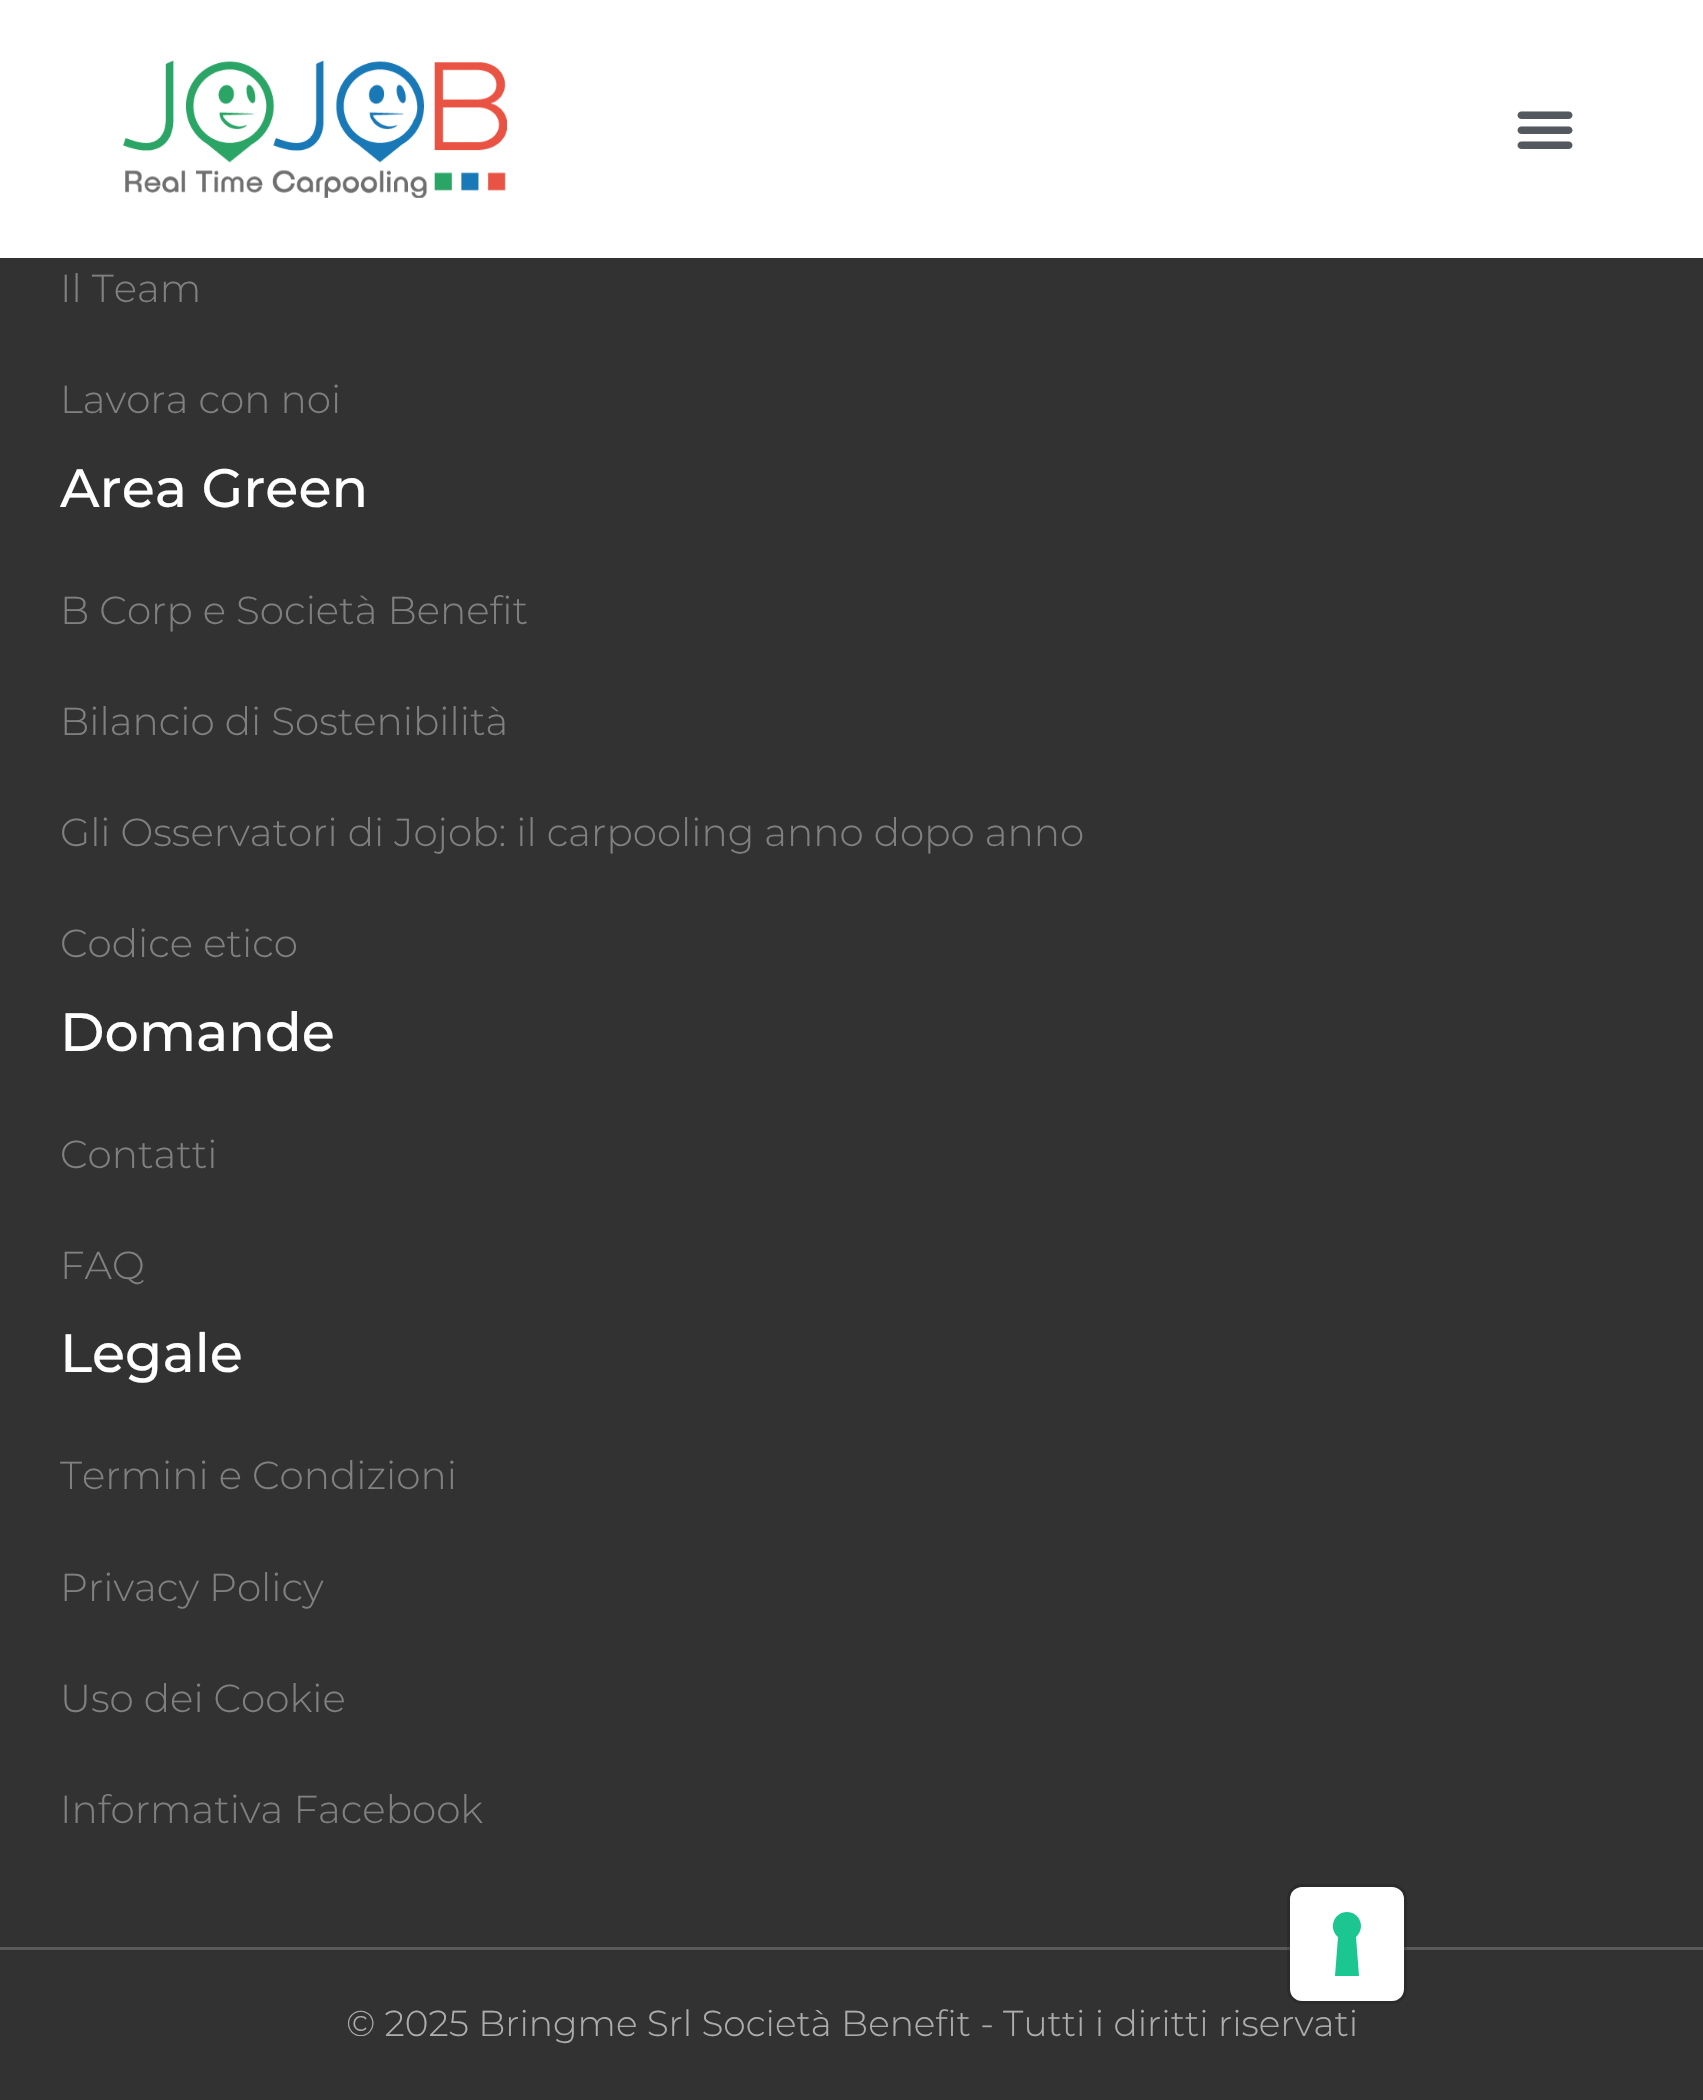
void draw(SkCanvas* canvas) {
    SkPaint paint;
    paint.setAntiAlias(true);
    canvas->clear(0xFF323232);
    paint.setColor(0xFFFFFFFF);
    canvas->drawRect(SkRect::MakeXYWH(0, 0, 1703, 258), paint);
    canvas->drawImageRect(SkImages::DeferredFromEncodedData(SkData::MakeFromFileName("img1.png")), SkRect::MakeXYWH(123, 60, 384, 138), SkSamplingOptions());
    canvas->drawImageRect(SkImages::DeferredFromEncodedData(SkData::MakeFromFileName("img2.png")), SkRect::MakeXYWH(1517, 111, 56, 38), SkSamplingOptions());
    SkFont font1(fontMgr->matchFamilyStyle("Montserrat", SkFontStyle(300, SkFontStyle::kNormal_Width, SkFontStyle::kUpright_Slant)), 39);
    font1.setSubpixel(true);
    paint.setColor(0xFF808080);
    canvas->drawString("Il Team", 60, 302, font1, paint);
    canvas->drawString("Lavora con noi", 60, 413, font1, paint);
    SkFont font2(fontMgr->matchFamilyStyle("Montserrat", SkFontStyle(500, SkFontStyle::kNormal_Width, SkFontStyle::kUpright_Slant)), 54);
    font2.setSubpixel(true);
    paint.setColor(0xFFFFFFFF);
    canvas->drawString("Area Green", 60, 507, font2, paint);
    paint.setColor(0xFF808080);
    canvas->drawString("B Corp e Società Benefit", 60, 624, font1, paint);
    canvas->drawString("Bilancio di Sostenibilità", 60, 735, font1, paint);
    canvas->drawString("Gli Osservatori di Jojob: il carpooling anno dopo anno", 60, 846, font1, paint);
    canvas->drawString("Codice etico", 60, 957, font1, paint);
    paint.setColor(0xFFFFFFFF);
    canvas->drawString("Domande", 60, 1051, font2, paint);
    paint.setColor(0xFF808080);
    canvas->drawString("Contatti", 60, 1168, font1, paint);
    canvas->drawString("FAQ", 60, 1279, font1, paint);
    paint.setColor(0xFFFFFFFF);
    canvas->drawString("Legale", 60, 1372, font2, paint);
    paint.setColor(0xFF808080);
    canvas->drawString("Termini e Condizioni", 60, 1489, font1, paint);
    canvas->drawString("Privacy Policy", 60, 1601, font1, paint);
    canvas->drawString("Uso dei Cookie", 60, 1712, font1, paint);
    canvas->drawString("Informativa Facebook", 60, 1823, font1, paint);
    paint.setColor(0xFF595959);
    canvas->drawRect(SkRect::MakeXYWH(0, 1947, 1703, 3), paint);
    SkFont font3(fontMgr->matchFamilyStyle("Montserrat", SkFontStyle(300, SkFontStyle::kNormal_Width, SkFontStyle::kUpright_Slant)), 36);
    font3.setSubpixel(true);
    paint.setColor(0xFFADADAD);
    canvas->drawString("© 2025 Bringme Srl Società Benefit - Tutti i diritti riservati", 346, 2036, font3, paint);
    paint.setStyle(SkPaint::kStroke_Style);
    paint.setStrokeWidth(3);
    paint.setColor(0x26000000);
    canvas->drawRoundRect(SkRect::MakeXYWH(1288.5f, 1885.5f, 117, 117), 13.5f, 13.5f, paint);
    paint.setStyle(SkPaint::kFill_Style);
    paint.setColor(0xFFFFFFFF);
    canvas->drawRoundRect(SkRect::MakeXYWH(1290, 1887, 114, 114), 12, 12, paint);
    paint.setColor(0xFF1CC691);
    canvas->drawPath(SkPathBuilder(SkPathFillType::kEvenOdd).moveTo(1347, 1912).cubicTo(1360, 1912, 1366, 1928, 1356, 1937).lineTo(1359, 1976).lineTo(1335, 1976).lineTo(1338, 1937).cubicTo(1328, 1928, 1334, 1912, 1347, 1912).close().detach(), paint);
}
